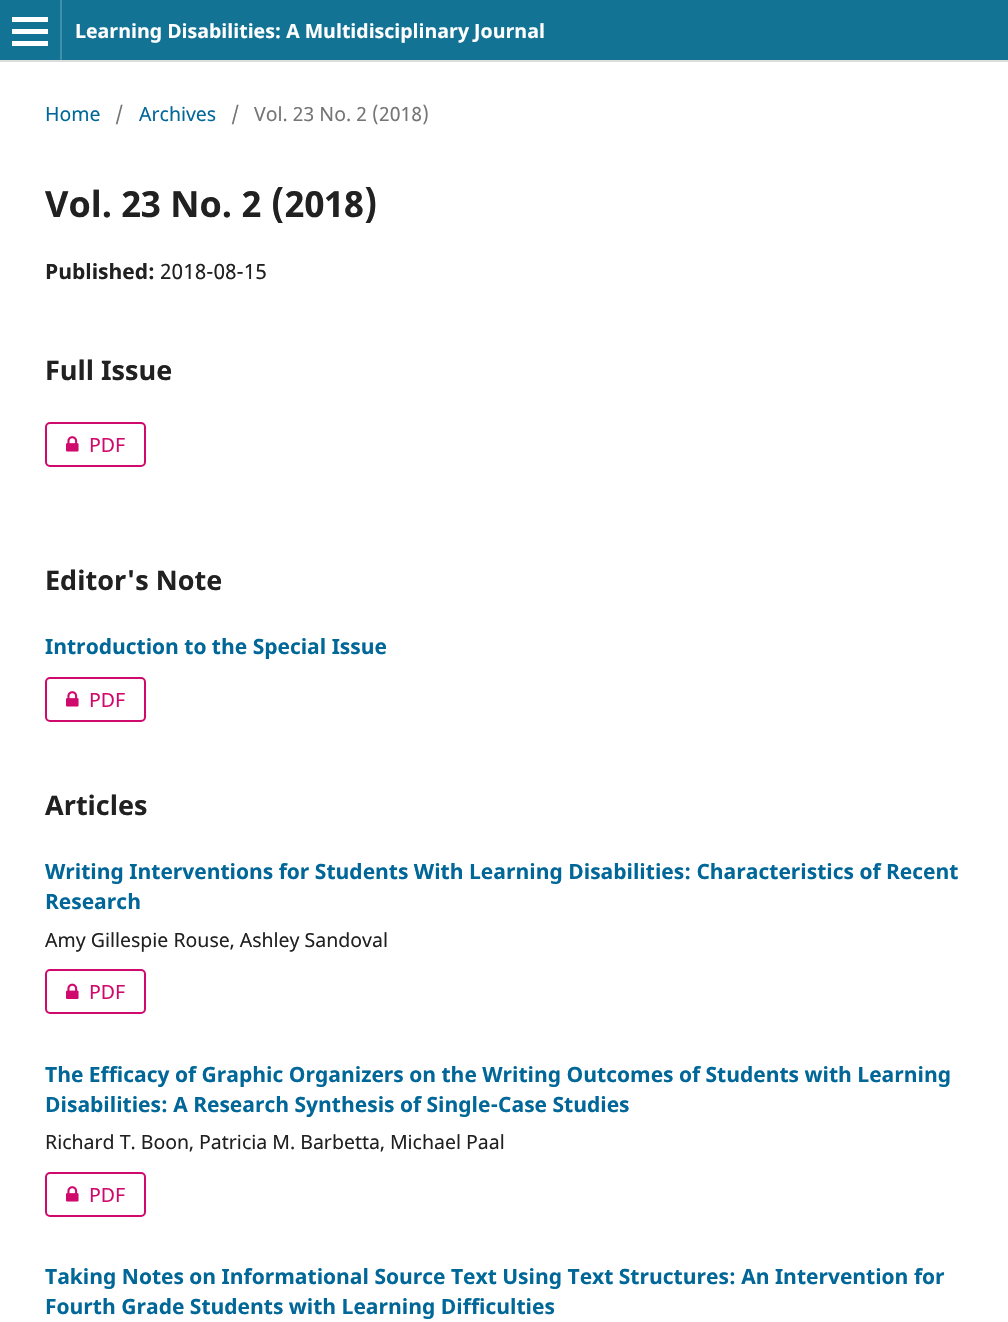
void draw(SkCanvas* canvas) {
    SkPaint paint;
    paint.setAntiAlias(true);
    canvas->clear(0xFFFFFFFF);
    paint.setColor(0xFF127394);
    canvas->drawRect(SkRect::MakeXYWH(0, 0, 1008, 60), paint);
    paint.setColor(0xFFDDDDDD);
    canvas->drawRect(SkRect::MakeXYWH(0, 60, 1008, 2), paint);
    paint.setColor(0xFF418FA9);
    canvas->drawRect(SkRect::MakeXYWH(60, 0, 2, 60), paint);
    paint.setColor(0xFFFFFFFF);
    canvas->drawRect(SkRect::MakeXYWH(12, 41, 36, 5), paint);
    canvas->drawRect(SkRect::MakeXYWH(12, 17, 36, 5), paint);
    canvas->drawRect(SkRect::MakeXYWH(12, 29, 36, 5), paint);
    SkFont font1(fontMgr->matchFamilyStyle("Noto Sans", SkFontStyle::Bold()), 19.5f);
    font1.setSubpixel(true);
    canvas->drawString("Learning Disabilities: A Multidisciplinary Journal", 75, 38, font1, paint);
    SkFont font2(fontMgr->matchFamilyStyle("Noto Sans", SkFontStyle::Normal()), 19.5f);
    font2.setSubpixel(true);
    paint.setColor(0xFF006798);
    canvas->drawString("Home", 45, 121, font2, paint);
    paint.setColor(0xFF757575);
    canvas->drawString("/", 115, 121, font2, paint);
    paint.setColor(0xFF006798);
    canvas->drawString("Archives", 139, 121, font2, paint);
    paint.setColor(0xFF757575);
    canvas->drawString("/", 231, 121, font2, paint);
    canvas->drawString("Vol. 23 No. 2 (2018)", 254, 121, font2, paint);
    SkFont font3(fontMgr->matchFamilyStyle("Noto Sans", SkFontStyle::Bold()), 36);
    font3.setSubpixel(true);
    paint.setColor(0xFF212121);
    canvas->drawString("Vol. 23 No. 2 (2018)", 45, 217, font3, paint);
    SkFont font4(fontMgr->matchFamilyStyle("Noto Sans", SkFontStyle::Bold()), 21);
    font4.setSubpixel(true);
    canvas->drawString("Published:", 45, 279, font4, paint);
    SkFont font5(fontMgr->matchFamilyStyle("Noto Sans", SkFontStyle::Normal()), 21);
    font5.setSubpixel(true);
    canvas->drawString("2018-08-15", 160, 279, font5, paint);
    SkFont font6(fontMgr->matchFamilyStyle("Noto Sans", SkFontStyle::Bold()), 27);
    font6.setSubpixel(true);
    canvas->drawString("Full Issue", 45, 380, font6, paint);
    paint.setStyle(SkPaint::kStroke_Style);
    paint.setStrokeWidth(2);
    paint.setColor(0xFFD00A6C);
    canvas->drawRoundRect(SkRect::MakeXYWH(46, 423, 99, 43), 4, 4, paint);
    canvas->drawImageRect(SkImages::DeferredFromEncodedData(SkData::MakeFromFileName("img1.png")), SkRect::MakeXYWH(66, 436, 13, 16), SkSamplingOptions());
    paint.setStyle(SkPaint::kFill_Style);
    canvas->drawString("PDF", 89, 452, font2, paint);
    paint.setColor(0xFF212121);
    canvas->drawString("Editor's Note", 45, 590, font6, paint);
    paint.setColor(0xFF006798);
    canvas->drawString("Introduction to the Special Issue", 45, 654, font4, paint);
    paint.setStyle(SkPaint::kStroke_Style);
    paint.setColor(0xFFD00A6C);
    canvas->drawRoundRect(SkRect::MakeXYWH(46, 678, 99, 43), 4, 4, paint);
    canvas->drawImageRect(SkImages::DeferredFromEncodedData(SkData::MakeFromFileName("img1.png")), SkRect::MakeXYWH(66, 691, 13, 16), SkSamplingOptions());
    paint.setStyle(SkPaint::kFill_Style);
    canvas->drawString("PDF", 89, 707, font2, paint);
    paint.setColor(0xFF212121);
    canvas->drawString("Articles", 45, 815, font6, paint);
    paint.setColor(0xFF006798);
    canvas->drawString("Writing Interventions for Students With Learning Disabilities: Characteristics of Recent", 45, 879, font4, paint);
    canvas->drawString("Research", 45, 909, font4, paint);
    paint.setColor(0xFF212121);
    canvas->drawString("Amy Gillespie Rouse, Ashley Sandoval", 45, 947, font2, paint);
    paint.setStyle(SkPaint::kStroke_Style);
    paint.setColor(0xFFD00A6C);
    canvas->drawRoundRect(SkRect::MakeXYWH(46, 970, 99, 43), 4, 4, paint);
    canvas->drawImageRect(SkImages::DeferredFromEncodedData(SkData::MakeFromFileName("img2.png")), SkRect::MakeXYWH(66, 983, 13, 16), SkSamplingOptions());
    paint.setStyle(SkPaint::kFill_Style);
    canvas->drawString("PDF", 89, 999, font2, paint);
    paint.setColor(0xFF006798);
    canvas->drawString("The Efficacy of Graphic Organizers on the Writing Outcomes of Students with Learning", 45, 1082, font4, paint);
    canvas->drawString("Disabilities: A Research Synthesis of Single-Case Studies", 45, 1112, font4, paint);
    paint.setColor(0xFF212121);
    canvas->drawString("Richard T. Boon, Patricia M. Barbetta, Michael Paal", 45, 1149, font2, paint);
    paint.setStyle(SkPaint::kStroke_Style);
    paint.setColor(0xFFD00A6C);
    canvas->drawRoundRect(SkRect::MakeXYWH(46, 1173, 99, 43), 4, 4, paint);
    canvas->drawImageRect(SkImages::DeferredFromEncodedData(SkData::MakeFromFileName("img1.png")), SkRect::MakeXYWH(66, 1186, 13, 16), SkSamplingOptions());
    paint.setStyle(SkPaint::kFill_Style);
    canvas->drawString("PDF", 89, 1202, font2, paint);
    paint.setColor(0xFF006798);
    canvas->drawString("Taking Notes on Informational Source Text Using Text Structures: An Intervention for", 45, 1284, font4, paint);
    canvas->drawString("Fourth Grade Students with Learning Difficulties", 45, 1314, font4, paint);
}
